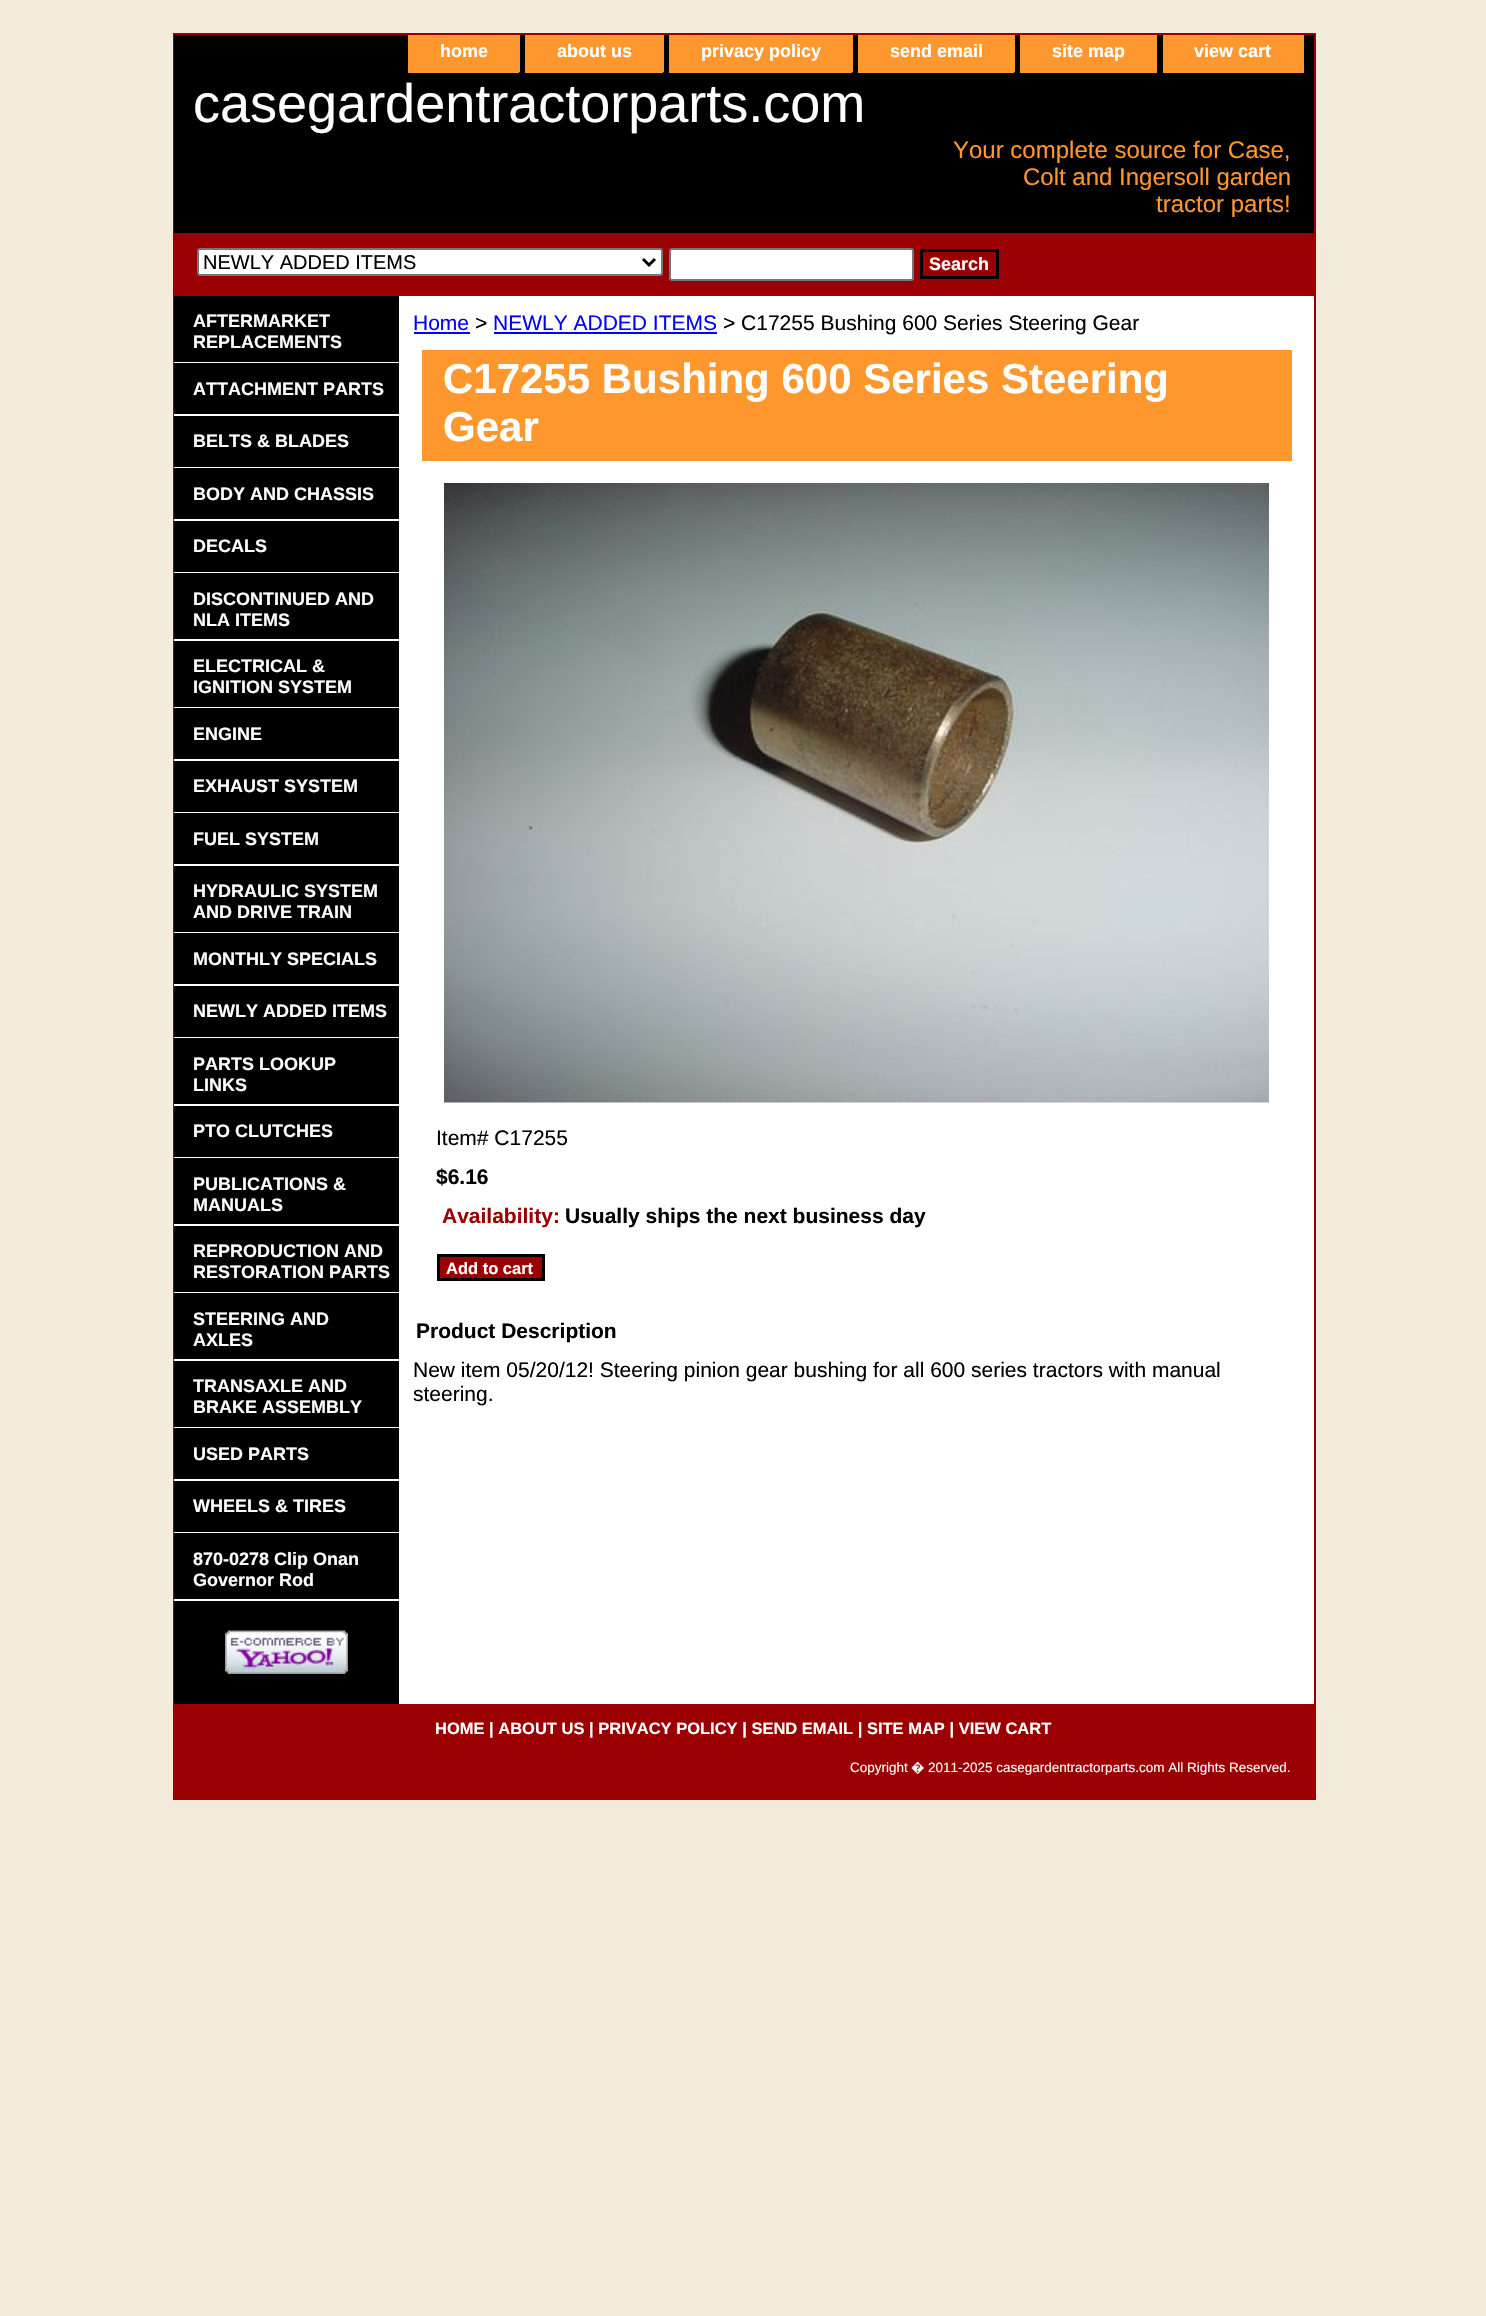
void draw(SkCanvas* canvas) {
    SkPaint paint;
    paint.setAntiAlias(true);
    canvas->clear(0xFFF3ECDA);
    paint.setStyle(SkPaint::kStroke_Style);
    paint.setStrokeWidth(2);
    paint.setColor(0xFF9A0002);
    canvas->drawRect(SkRect::MakeXYWH(174, 34, 1141, 1765), paint);
    paint.setStyle(SkPaint::kFill_Style);
    paint.setColor(0xFF000000);
    canvas->drawRect(SkRect::MakeXYWH(174, 35, 1140, 198), paint);
    paint.setColor(0xFFFF972F);
    canvas->drawRect(SkRect::MakeXYWH(408, 35, 110, 36), paint);
    canvas->drawRect(SkRect::MakeXYWH(518, 35, 2, 37), paint);
    canvas->drawRect(SkRect::MakeXYWH(408, 71, 111, 2), paint);
    SkFont font1(fontMgr->matchFamilyStyle("Liberation Sans", SkFontStyle::Bold()), 18);
    font1.setSubpixel(true);
    paint.setColor(0xFFFFFFFF);
    canvas->drawString("home", 440, 57, font1, paint);
    paint.setColor(0xFFFF972F);
    canvas->drawRect(SkRect::MakeXYWH(525, 35, 137, 36), paint);
    canvas->drawRect(SkRect::MakeXYWH(662, 35, 2, 37), paint);
    canvas->drawRect(SkRect::MakeXYWH(525, 71, 138, 2), paint);
    paint.setColor(0xFFFFFFFF);
    canvas->drawString("about us", 557, 57, font1, paint);
    paint.setColor(0xFFFF972F);
    canvas->drawRect(SkRect::MakeXYWH(669, 35, 182, 36), paint);
    canvas->drawRect(SkRect::MakeXYWH(851, 35, 2, 37), paint);
    canvas->drawRect(SkRect::MakeXYWH(669, 71, 183, 2), paint);
    paint.setColor(0xFFFFFFFF);
    canvas->drawString("privacy policy", 701, 57, font1, paint);
    paint.setColor(0xFFFF972F);
    canvas->drawRect(SkRect::MakeXYWH(858, 35, 155, 36), paint);
    canvas->drawRect(SkRect::MakeXYWH(1013, 35, 2, 37), paint);
    canvas->drawRect(SkRect::MakeXYWH(858, 71, 156, 2), paint);
    paint.setColor(0xFFFFFFFF);
    canvas->drawString("send email", 890, 57, font1, paint);
    paint.setColor(0xFFFF972F);
    canvas->drawRect(SkRect::MakeXYWH(1020, 35, 137, 38), paint);
    paint.setColor(0xFFFFFFFF);
    canvas->drawString("site map", 1052, 57, font1, paint);
    paint.setColor(0xFFFF972F);
    canvas->drawRect(SkRect::MakeXYWH(1163, 35, 141, 38), paint);
    paint.setColor(0xFFFFFFFF);
    canvas->drawString("view cart", 1194, 57, font1, paint);
    SkFont font2(fontMgr->matchFamilyStyle("Liberation Sans", SkFontStyle::Normal()), 54);
    font2.setSubpixel(true);
    canvas->drawString("casegardentractorparts.com", 193, 122, font2, paint);
    SkFont font3(fontMgr->matchFamilyStyle("Liberation Sans", SkFontStyle::Normal()), 24);
    font3.setSubpixel(true);
    paint.setColor(0xFFFF972F);
    canvas->drawString("Your complete source for Case,", 953, 158, font3, paint);
    canvas->drawString("Colt and Ingersoll garden", 1023, 185, font3, paint);
    canvas->drawString("tractor parts!", 1156, 212, font3, paint);
    paint.setColor(0xFF9A0002);
    canvas->drawRect(SkRect::MakeXYWH(175, 233, 1139, 63), paint);
    paint.setColor(0xFFFFFFFF);
    canvas->drawRoundRect(SkRect::MakeXYWH(198, 249, 464, 26), 2, 2, paint);
    paint.setStyle(SkPaint::kStroke_Style);
    paint.setColor(0xFF767676);
    canvas->drawRoundRect(SkRect::MakeXYWH(198, 249, 464, 26), 2, 2, paint);
    paint.setStrokeWidth(3);
    paint.setColor(0xFF000000);
    canvas->drawPath(SkPathBuilder().moveTo(643, 259).lineTo(649, 265).lineTo(655, 259).detach(), paint);
    SkFont font4(fontMgr->matchFamilyStyle("Liberation Sans", SkFontStyle::Normal()), 20);
    font4.setSubpixel(true);
    paint.setStyle(SkPaint::kFill_Style);
    canvas->drawString("NEWLY ADDED ITEMS", 203, 269, font4, paint);
    paint.setColor(0xFFFFFFFF);
    canvas->drawRoundRect(SkRect::MakeXYWH(670, 249, 243, 31), 2, 2, paint);
    paint.setStyle(SkPaint::kStroke_Style);
    paint.setStrokeWidth(2);
    paint.setColor(0xFF767676);
    canvas->drawRoundRect(SkRect::MakeXYWH(670, 249, 243, 31), 2, 2, paint);
    paint.setStrokeWidth(3);
    paint.setColor(0xFF000000);
    canvas->drawRect(SkRect::MakeXYWH(921.5f, 250.5f, 76, 27), paint);
    paint.setStyle(SkPaint::kFill_Style);
    paint.setColor(0xFFFFFFFF);
    canvas->drawString("Search", 929, 270, font1, paint);
    canvas->drawRect(SkRect::MakeXYWH(399, 296, 915, 1408), paint);
    paint.setColor(0xFF000000);
    canvas->drawRect(SkRect::MakeXYWH(174, 296, 225, 1408), paint);
    paint.setColor(0xFFFFFFFF);
    canvas->drawRect(SkRect::MakeXYWH(174, 362, 225, 1), paint);
    canvas->drawString("AFTERMARKET", 193, 327, font1, paint);
    canvas->drawString("REPLACEMENTS", 193, 348, font1, paint);
    canvas->drawRect(SkRect::MakeXYWH(174, 414, 225, 2), paint);
    canvas->drawString("ATTACHMENT PARTS", 193, 395, font1, paint);
    canvas->drawRect(SkRect::MakeXYWH(174, 467, 225, 1), paint);
    canvas->drawString("BELTS & BLADES", 193, 447, font1, paint);
    canvas->drawRect(SkRect::MakeXYWH(174, 519, 225, 2), paint);
    canvas->drawString("BODY AND CHASSIS", 193, 500, font1, paint);
    canvas->drawRect(SkRect::MakeXYWH(174, 572, 225, 1), paint);
    canvas->drawString("DECALS", 193, 552, font1, paint);
    canvas->drawRect(SkRect::MakeXYWH(174, 639, 225, 2), paint);
    canvas->drawString("DISCONTINUED AND", 193, 605, font1, paint);
    canvas->drawString("NLA ITEMS", 193, 626, font1, paint);
    canvas->drawRect(SkRect::MakeXYWH(174, 707, 225, 1), paint);
    canvas->drawString("ELECTRICAL &", 193, 672, font1, paint);
    canvas->drawString("IGNITION SYSTEM", 193, 693, font1, paint);
    canvas->drawRect(SkRect::MakeXYWH(174, 759, 225, 2), paint);
    canvas->drawString("ENGINE", 193, 740, font1, paint);
    canvas->drawRect(SkRect::MakeXYWH(174, 812, 225, 1), paint);
    canvas->drawString("EXHAUST SYSTEM", 193, 792, font1, paint);
    canvas->drawRect(SkRect::MakeXYWH(174, 864, 225, 2), paint);
    canvas->drawString("FUEL SYSTEM", 193, 845, font1, paint);
    canvas->drawRect(SkRect::MakeXYWH(174, 932, 225, 1), paint);
    canvas->drawString("HYDRAULIC SYSTEM", 193, 897, font1, paint);
    canvas->drawString("AND DRIVE TRAIN", 193, 918, font1, paint);
    canvas->drawRect(SkRect::MakeXYWH(174, 984, 225, 2), paint);
    canvas->drawString("MONTHLY SPECIALS", 193, 965, font1, paint);
    canvas->drawRect(SkRect::MakeXYWH(174, 1037, 225, 1), paint);
    canvas->drawString("NEWLY ADDED ITEMS", 193, 1017, font1, paint);
    canvas->drawRect(SkRect::MakeXYWH(174, 1104, 225, 2), paint);
    canvas->drawString("PARTS LOOKUP", 193, 1070, font1, paint);
    canvas->drawString("LINKS", 193, 1091, font1, paint);
    canvas->drawRect(SkRect::MakeXYWH(174, 1157, 225, 1), paint);
    canvas->drawString("PTO CLUTCHES", 193, 1137, font1, paint);
    canvas->drawRect(SkRect::MakeXYWH(174, 1224, 225, 2), paint);
    canvas->drawString("PUBLICATIONS &", 193, 1190, font1, paint);
    canvas->drawString("MANUALS", 193, 1211, font1, paint);
    canvas->drawRect(SkRect::MakeXYWH(174, 1292, 225, 1), paint);
    canvas->drawString("REPRODUCTION AND", 193, 1257, font1, paint);
    canvas->drawString("RESTORATION PARTS", 193, 1278, font1, paint);
    canvas->drawRect(SkRect::MakeXYWH(174, 1359, 225, 2), paint);
    canvas->drawString("STEERING AND", 193, 1325, font1, paint);
    canvas->drawString("AXLES", 193, 1346, font1, paint);
    canvas->drawRect(SkRect::MakeXYWH(174, 1427, 225, 1), paint);
    canvas->drawString("TRANSAXLE AND", 193, 1392, font1, paint);
    canvas->drawString("BRAKE ASSEMBLY", 193, 1413, font1, paint);
    canvas->drawRect(SkRect::MakeXYWH(174, 1479, 225, 2), paint);
    canvas->drawString("USED PARTS", 193, 1460, font1, paint);
    canvas->drawRect(SkRect::MakeXYWH(174, 1532, 225, 1), paint);
    canvas->drawString("WHEELS & TIRES", 193, 1512, font1, paint);
    canvas->drawRect(SkRect::MakeXYWH(174, 1599, 225, 2), paint);
    canvas->drawString("870-0278 Clip Onan", 193, 1565, font1, paint);
    canvas->drawString("Governor Rod", 193, 1586, font1, paint);
    canvas->drawImageRect(SkImages::DeferredFromEncodedData(SkData::MakeFromFileName("img1.png")), SkRect::MakeXYWH(225, 1630, 123, 44), SkSamplingOptions());
    SkFont font5(fontMgr->matchFamilyStyle("Liberation Sans", SkFontStyle::Normal()), 21);
    font5.setSubpixel(true);
    paint.setColor(0xFF0000FF);
    canvas->drawString("Home", 413, 330, font5, paint);
    canvas->drawRect(SkRect::MakeXYWH(414, 332, 56, 2), paint);
    paint.setColor(0xFF000000);
    canvas->drawString(">", 475, 330, font5, paint);
    paint.setColor(0xFF0000FF);
    canvas->drawString("NEWLY ADDED ITEMS", 493, 330, font5, paint);
    canvas->drawRect(SkRect::MakeXYWH(494, 332, 223, 2), paint);
    paint.setColor(0xFF000000);
    canvas->drawString("> C17255 Bushing 600 Series Steering Gear", 723, 330, font5, paint);
    paint.setColor(0xFFFF972F);
    canvas->drawRect(SkRect::MakeXYWH(422, 350, 870, 111), paint);
    SkFont font6(fontMgr->matchFamilyStyle("Liberation Sans", SkFontStyle::Bold()), 42);
    font6.setSubpixel(true);
    paint.setColor(0xFFFFFFFF);
    canvas->drawString("C17255 Bushing 600 Series Steering", 443, 393, font6, paint);
    canvas->drawString("Gear", 443, 441, font6, paint);
    canvas->drawImageRect(SkImages::DeferredFromEncodedData(SkData::MakeFromFileName("img2.png")), SkRect::MakeXYWH(444, 483, 825, 620), SkSamplingOptions());
    paint.setColor(0xFF000000);
    canvas->drawString("Item# C17255", 436, 1145, font5, paint);
    SkFont font7(fontMgr->matchFamilyStyle("Liberation Sans", SkFontStyle::Bold()), 21);
    font7.setSubpixel(true);
    canvas->drawString("$6.16", 436, 1184, font7, paint);
    paint.setColor(0xFF9A0002);
    canvas->drawString("Availability:", 442, 1223, font7, paint);
    paint.setColor(0xFF000000);
    canvas->drawString("Usually ships the next business day", 565, 1223, font7, paint);
    paint.setColor(0xFF9A0002);
    canvas->drawRect(SkRect::MakeXYWH(438.5f, 1255.5f, 105, 24), paint);
    paint.setStyle(SkPaint::kStroke_Style);
    paint.setColor(0xFF000000);
    canvas->drawRect(SkRect::MakeXYWH(438.5f, 1255.5f, 105, 24), paint);
    SkFont font8(fontMgr->matchFamilyStyle("Liberation Sans", SkFontStyle::Bold()), 16.5f);
    font8.setSubpixel(true);
    paint.setStyle(SkPaint::kFill_Style);
    paint.setColor(0xFFFFFFFF);
    canvas->drawString("Add to cart", 446, 1274, font8, paint);
    paint.setColor(0xFF000000);
    canvas->drawString("Product Description", 416, 1338, font7, paint);
    canvas->drawString("New item 05/20/12! Steering pinion gear bushing for all 600 series tractors with manual", 413, 1377, font5, paint);
    canvas->drawString("steering.", 413, 1401, font5, paint);
    paint.setColor(0xFF9A0002);
    canvas->drawRect(SkRect::MakeXYWH(175, 1704, 1139, 94), paint);
    paint.setColor(0xFFFFFFFF);
    canvas->drawString("HOME | ABOUT US | PRIVACY POLICY | SEND EMAIL | SITE MAP | VIEW CART", 435, 1734, font8, paint);
    SkFont font9(fontMgr->matchFamilyStyle("Liberation Sans", SkFontStyle::Normal()), 13.5f);
    font9.setSubpixel(true);
    paint.setColor(0xFFF6F6F6);
    canvas->drawString("Copyright", 850, 1772, font9, paint);
    SkFont font10(fontMgr->matchFamilyStyle("Noto Sans", SkFontStyle::Normal()), 13.5f);
    font10.setSubpixel(true);
    canvas->drawString("�", 911, 1772, font10, paint);
    canvas->drawString("2011-2025 casegardentractorparts.com All Rights Reserved.", 928, 1772, font9, paint);
}
